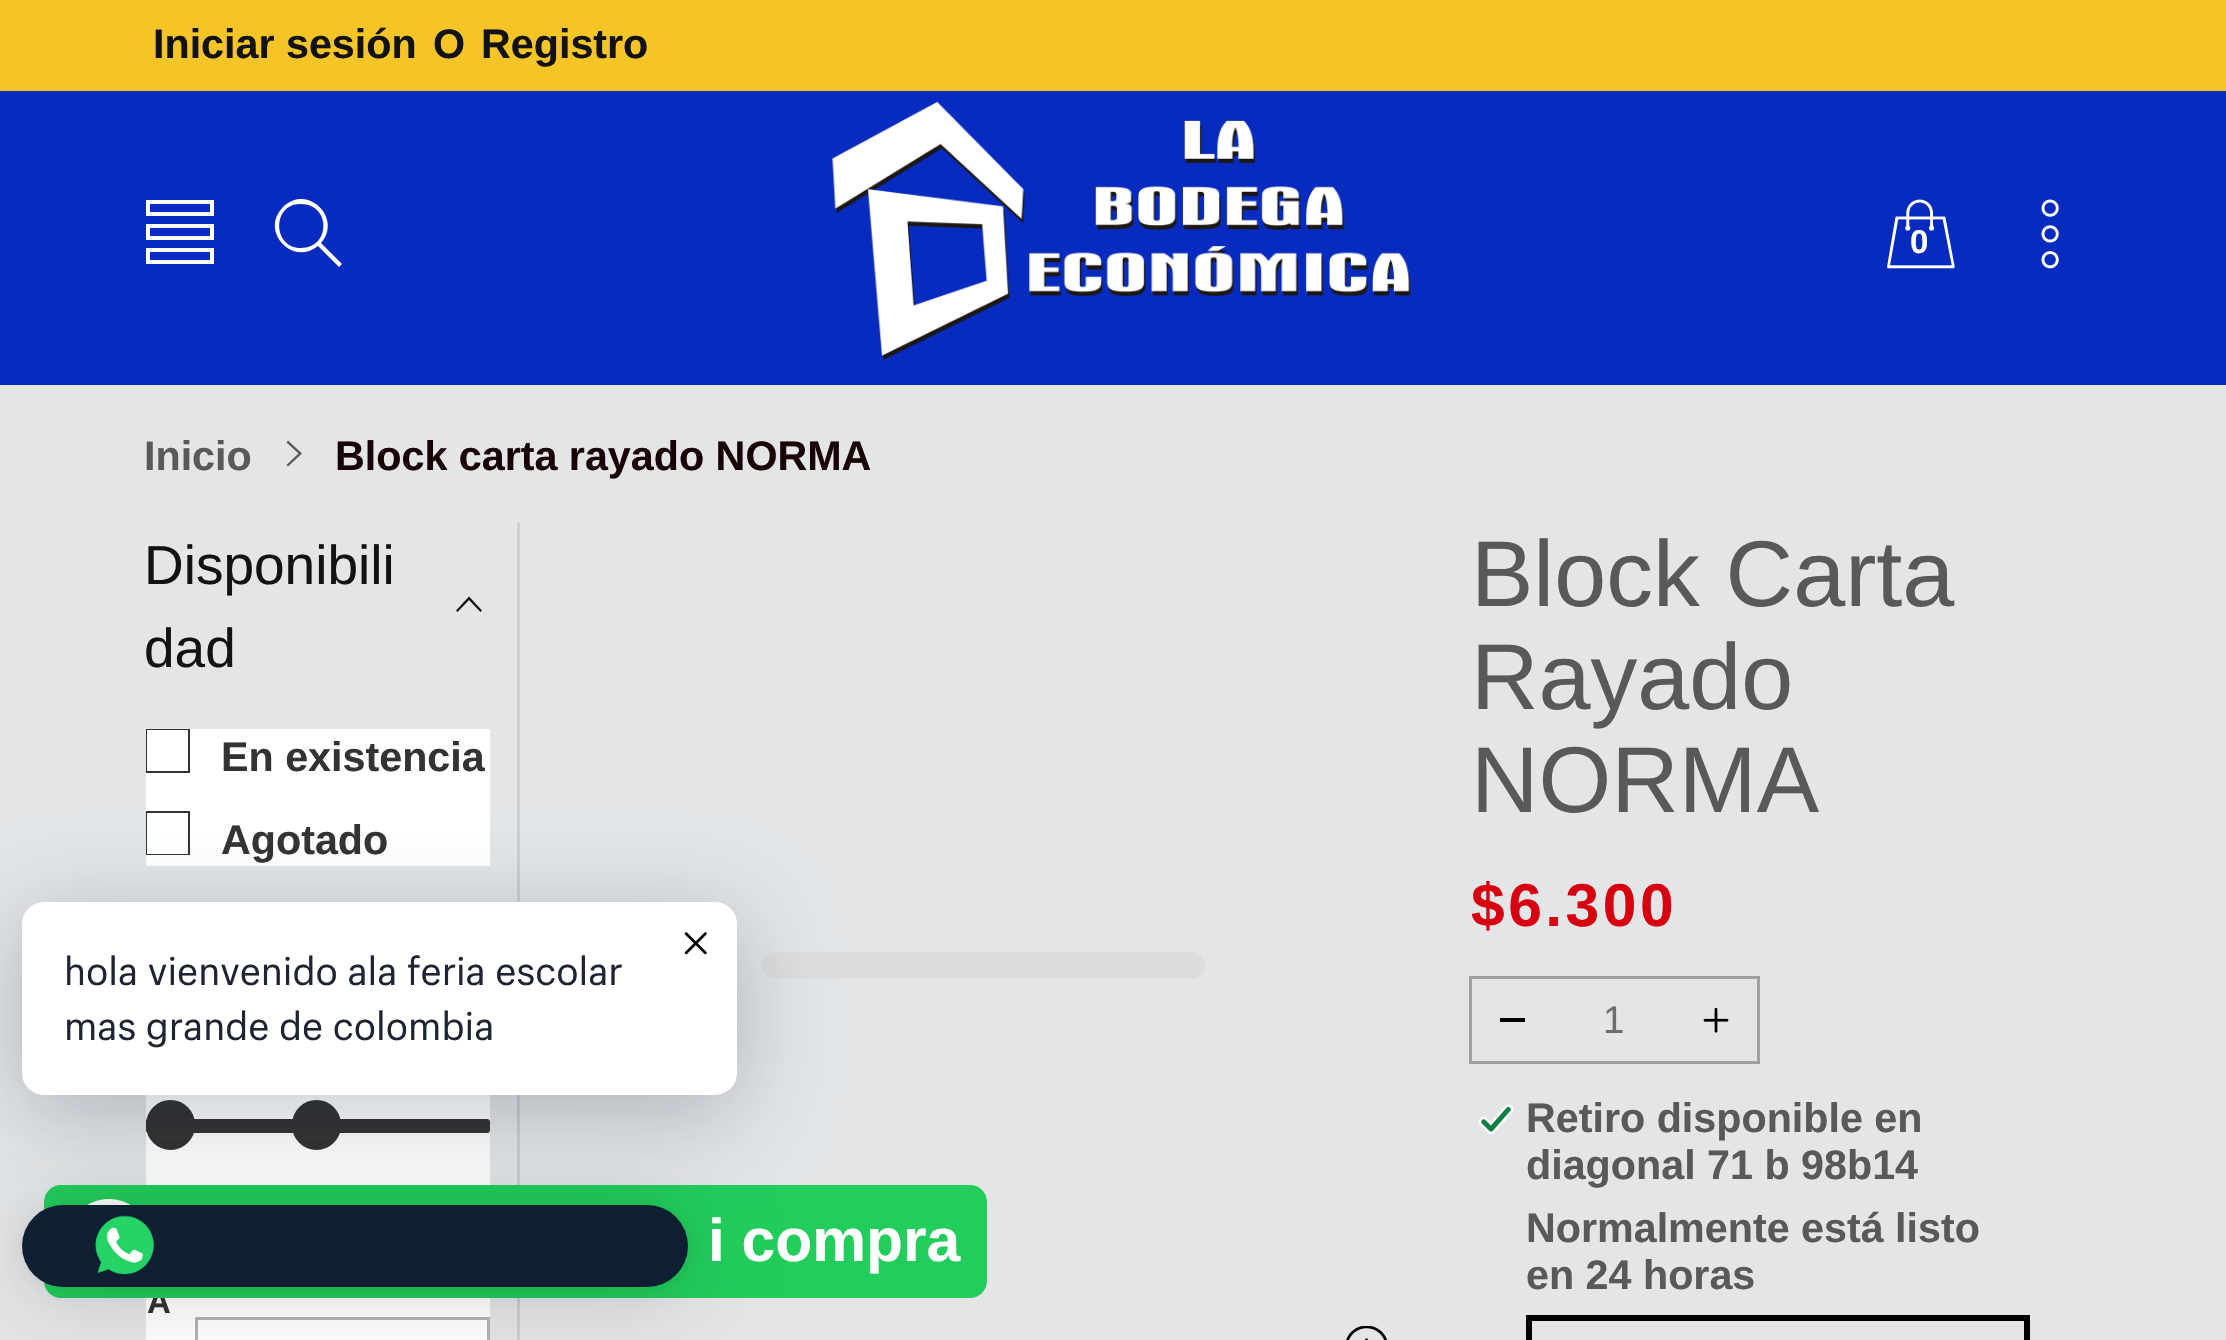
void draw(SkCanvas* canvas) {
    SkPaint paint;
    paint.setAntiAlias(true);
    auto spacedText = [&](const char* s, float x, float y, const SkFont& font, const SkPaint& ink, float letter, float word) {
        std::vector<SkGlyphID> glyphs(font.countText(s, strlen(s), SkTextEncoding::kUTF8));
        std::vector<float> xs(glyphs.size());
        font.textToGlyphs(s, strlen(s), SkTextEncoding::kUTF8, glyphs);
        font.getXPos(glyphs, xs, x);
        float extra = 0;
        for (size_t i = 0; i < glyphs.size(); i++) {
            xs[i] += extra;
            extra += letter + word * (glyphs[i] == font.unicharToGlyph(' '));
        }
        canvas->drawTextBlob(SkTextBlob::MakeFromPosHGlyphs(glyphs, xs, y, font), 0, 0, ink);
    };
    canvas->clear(0xFFE3E5E7);
    paint.setColor(0xFFF5C426);
    canvas->drawRect(SkRect::MakeXYWH(0, 0, 2226, 91), paint);
    SkFont font1(fontMgr->matchFamilyStyle("Liberation Sans", SkFontStyle::Bold()), 41.25f);
    font1.setSubpixel(true);
    paint.setColor(0xFF121212);
    canvas->drawString("Iniciar sesión", 153, 58, font1, paint);
    canvas->drawString("O", 433, 58, font1, paint);
    canvas->drawString("Registro", 481, 58, font1, paint);
    paint.setColor(0xFF072BBE);
    canvas->drawRect(SkRect::MakeXYWH(0, 91, 2226, 294), paint);
    paint.setColor(0xFFFFFFFF);
    canvas->drawPath(SkPathBuilder().moveTo(146, 200).lineTo(146, 216).lineTo(214, 216).lineTo(214, 200).close().moveTo(210, 212).lineTo(150, 212).lineTo(150, 204).lineTo(210, 204).close().moveTo(146, 240).lineTo(214, 240).lineTo(214, 224).lineTo(146, 224).close().moveTo(150, 228).lineTo(210, 228).lineTo(210, 236).lineTo(150, 236).close().moveTo(146, 264).lineTo(214, 264).lineTo(214, 248).lineTo(146, 248).close().moveTo(150, 252).lineTo(210, 252).lineTo(210, 260).lineTo(150, 260).close().detach(), paint);
    canvas->drawPath(SkPathBuilder().moveTo(342, 264).lineTo(321, 243).cubicTo(343, 218, 307, 183, 283, 207).cubicTo(259, 231, 293, 267, 318, 246).lineTo(339, 267).close().moveTo(301, 248).cubicTo(272, 248, 272, 203, 301, 204).cubicTo(331, 204, 331, 248, 301, 248).close().detach(), paint);
    canvas->drawImageRect(SkImages::DeferredFromEncodedData(SkData::MakeFromFileName("img1.png")), SkRect::MakeXYWH(832, 101, 579, 260), SkSamplingOptions());
    canvas->drawImageRect(SkImages::DeferredFromEncodedData(SkData::MakeFromFileName("img2.png")), SkRect::MakeXYWH(1887, 199, 68, 70), SkSamplingOptions());
    SkFont font2(fontMgr->matchFamilyStyle("Liberation Sans", SkFontStyle::Bold()), 33);
    font2.setSubpixel(true);
    canvas->drawString("0", 1910, 253, font2, paint);
    canvas->drawImageRect(SkImages::DeferredFromEncodedData(SkData::MakeFromFileName("img3.png")), SkRect::MakeXYWH(2041, 199, 18, 70), SkSamplingOptions());
    paint.setColor(0xFF595959);
    canvas->drawString("Inicio", 144, 470, font1, paint);
    canvas->drawPath(SkPathBuilder().moveTo(286.5f, 442.5f).lineTo(288, 440.5f).lineTo(302, 453.5f).lineTo(288, 466.5f).lineTo(286.5f, 465).lineTo(298.5f, 453.5f).close().detach(), paint);
    paint.setColor(0xFF190206);
    canvas->drawString("Block carta rayado NORMA", 335, 470, font1, paint);
    paint.setColor(0xFFCCCED0);
    canvas->drawRect(SkRect::MakeXYWH(517, 523, 3, 817), paint);
    SkFont font3(fontMgr->matchFamilyStyle("Liberation Sans", SkFontStyle::Normal()), 55);
    font3.setSubpixel(true);
    paint.setColor(0xFF121212);
    canvas->drawString("Disponibili", 144, 584, font3, paint);
    canvas->drawString("dad", 144, 667, font3, paint);
    canvas->drawPath(SkPathBuilder().moveTo(480.5f, 612).lineTo(482, 610.5f).lineTo(469, 596.5f).lineTo(456, 610.5f).lineTo(457.5f, 612).lineTo(469, 600).close().detach(), paint);
    paint.setColor(0xFFFFFFFF);
    canvas->drawRect(SkRect::MakeXYWH(146, 729, 344, 137), paint);
    canvas->save();
    canvas->clipRect(SkRect::MakeXYWH(146, 729, 44, 44));
    paint.setStyle(SkPaint::kStroke_Style);
    paint.setStrokeWidth(3);
    paint.setColor(0xFF333333);
    canvas->drawRect(SkRect::MakeXYWH(145.5f, 728.5f, 44, 44), paint);
    canvas->restore();
    paint.setStyle(SkPaint::kFill_Style);
    canvas->drawString("En existencia", 221, 771, font1, paint);
    canvas->save();
    canvas->clipRect(SkRect::MakeXYWH(146, 811, 44, 44));
    paint.setStyle(SkPaint::kStroke_Style);
    canvas->drawRect(SkRect::MakeXYWH(145.5f, 811.5f, 44, 44), paint);
    canvas->restore();
    paint.setStyle(SkPaint::kFill_Style);
    canvas->drawString("Agotado", 221, 854, font1, paint);
    paint.setColor(0xFFFFFFFF);
    canvas->drawRect(SkRect::MakeXYWH(146, 1095, 344, 245), paint);
    paint.setColor(0xFF333333);
    canvas->drawRoundRect(SkRect::MakeXYWH(147.5f, 1101.5f, 46, 47), 23, 23, paint);
    paint.setStyle(SkPaint::kStroke_Style);
    canvas->drawRoundRect(SkRect::MakeXYWH(147.5f, 1101.5f, 46, 47), 23, 23, paint);
    paint.setStyle(SkPaint::kFill_Style);
    canvas->drawRoundRect(SkRect::MakeXYWH(146, 1119, 344, 14), 3, 3, paint);
    canvas->drawRoundRect(SkRect::MakeXYWH(293.5f, 1101.5f, 46, 47), 23, 23, paint);
    paint.setStyle(SkPaint::kStroke_Style);
    canvas->drawRoundRect(SkRect::MakeXYWH(293.5f, 1101.5f, 46, 47), 23, 23, paint);
    paint.setStyle(SkPaint::kFill_Style);
    canvas->drawString("A", 147, 1313, font2, paint);
    paint.setStyle(SkPaint::kStroke_Style);
    paint.setColor(0xFFB3B3B3);
    canvas->drawRect(SkRect::MakeXYWH(196.5f, 1318.5f, 292, 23), paint);
    paint.setStyle(SkPaint::kFill_Style);
    paint.setColor(0xFFDDDDDD);
    canvas->drawRoundRect(SkRect::MakeXYWH(762, 952, 443, 27), 13.5f, 13.5f, paint);
    canvas->drawImageRect(SkImages::DeferredFromEncodedData(SkData::MakeFromFileName("img4.png")), SkRect::MakeXYWH(1346, 1326, 41, 14), SkSamplingOptions());
    SkFont font4(fontMgr->matchFamilyStyle("Liberation Sans", SkFontStyle::Normal()), 93.5f);
    font4.setSubpixel(true);
    paint.setColor(0xFF595959);
    canvas->drawString("Block Carta", 1471, 606, font4, paint);
    canvas->drawString("Rayado", 1471, 709, font4, paint);
    canvas->drawString("NORMA", 1471, 812, font4, paint);
    SkFont font5(fontMgr->matchFamilyStyle("Liberation Sans", SkFontStyle::Bold()), 60.5f);
    font5.setSubpixel(true);
    paint.setColor(0xFFD70010);
    spacedText("$6.300", 1471, 926, font5, paint, 3.5f, 0);
    paint.setStyle(SkPaint::kStroke_Style);
    paint.setColor(0xFF9FA0A2);
    canvas->drawRect(SkRect::MakeXYWH(1470.5f, 977.5f, 288, 85), paint);
    paint.setStyle(SkPaint::kFill_Style);
    paint.setColor(0xFF000000);
    canvas->drawRect(SkRect::MakeXYWH(1500, 1018, 25, 4), paint);
    SkFont font6(fontMgr->matchFamilyStyle("Liberation Sans", SkFontStyle::Normal()), 38.5f);
    font6.setSubpixel(true);
    paint.setColor(0xFF6E6E6E);
    canvas->drawString("1", 1603, 1033, font6, paint);
    canvas->drawImageRect(SkImages::DeferredFromEncodedData(SkData::MakeFromFileName("img5.png")), SkRect::MakeXYWH(1703, 1007, 26, 26), SkSamplingOptions());
    canvas->drawImageRect(SkImages::DeferredFromEncodedData(SkData::MakeFromFileName("img6.png")), SkRect::MakeXYWH(1478, 1104, 36, 30), SkSamplingOptions());
    paint.setColor(0xFF595959);
    canvas->drawString("Retiro disponible en", 1526, 1132, font1, paint);
    canvas->drawString("diagonal 71 b 98b14", 1526, 1179, font1, paint);
    canvas->drawString("Normalmente está listo", 1526, 1242, font1, paint);
    canvas->drawString("en 24 horas", 1526, 1289, font1, paint);
    paint.setStyle(SkPaint::kStroke_Style);
    paint.setStrokeWidth(6);
    paint.setColor(0xFF000000);
    canvas->drawRect(SkRect::MakeXYWH(1529, 1318, 498, 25), paint);
    paint.setStyle(SkPaint::kFill_Style);
    paint.setColor(0xFF22CD5B);
    canvas->drawRoundRect(SkRect::MakeXYWH(44, 1185, 943, 113), 17, 17, paint);
    canvas->drawImageRect(SkImages::DeferredFromEncodedData(SkData::MakeFromFileName("img9.png")), SkRect::MakeXYWH(87, 1199, 44, 6), SkSamplingOptions());
    paint.setColor(0x3D00122E);
    paint.setMaskFilter(SkMaskFilter::MakeBlur(kNormal_SkBlurStyle, 44));
    canvas->drawRoundRect(SkRect::MakeXYWH(22, 919, 715, 192), 22, 22, paint);
    paint.setMaskFilter(nullptr);
    paint.setColor(0xFFFFFFFF);
    canvas->drawRoundRect(SkRect::MakeXYWH(22, 902, 715, 193), 22, 22, paint);
    canvas->drawImageRect(SkImages::DeferredFromEncodedData(SkData::MakeFromFileName("img7.png")), SkRect::MakeXYWH(684, 932, 23, 23), SkSamplingOptions());
    SkFont font7(fontMgr->matchFamilyStyle("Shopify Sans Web", SkFontStyle::Normal()), 38.5f);
    font7.setSubpixel(true);
    paint.setColor(0xFF1E2433);
    canvas->drawString("hola vienvenido ala feria escolar", 64, 985, font7, paint);
    canvas->drawString("mas grande de colombia", 64, 1040, font7, paint);
    paint.setColor(0x29000000);
    paint.setMaskFilter(SkMaskFilter::MakeBlur(kNormal_SkBlurStyle, 44));
    canvas->drawRoundRect(SkRect::MakeXYWH(22, 1210, 666, 83), 41.5f, 41.5f, paint);
    paint.setMaskFilter(nullptr);
    paint.setColor(0x0F000000);
    paint.setMaskFilter(SkMaskFilter::MakeBlur(kNormal_SkBlurStyle, 8));
    canvas->drawRoundRect(SkRect::MakeXYWH(22, 1207, 666, 83), 41.5f, 41.5f, paint);
    paint.setMaskFilter(nullptr);
    paint.setColor(0xFF102033);
    canvas->drawRoundRect(SkRect::MakeXYWH(22, 1205, 666, 82), 41, 41, paint);
    canvas->drawImageRect(SkImages::DeferredFromEncodedData(SkData::MakeFromFileName("img8.png")), SkRect::MakeXYWH(95, 1215, 59, 60), SkSamplingOptions());
    paint.setColor(0xFFFFFFFF);
    canvas->drawString("i compra", 708, 1261, font5, paint);
}
